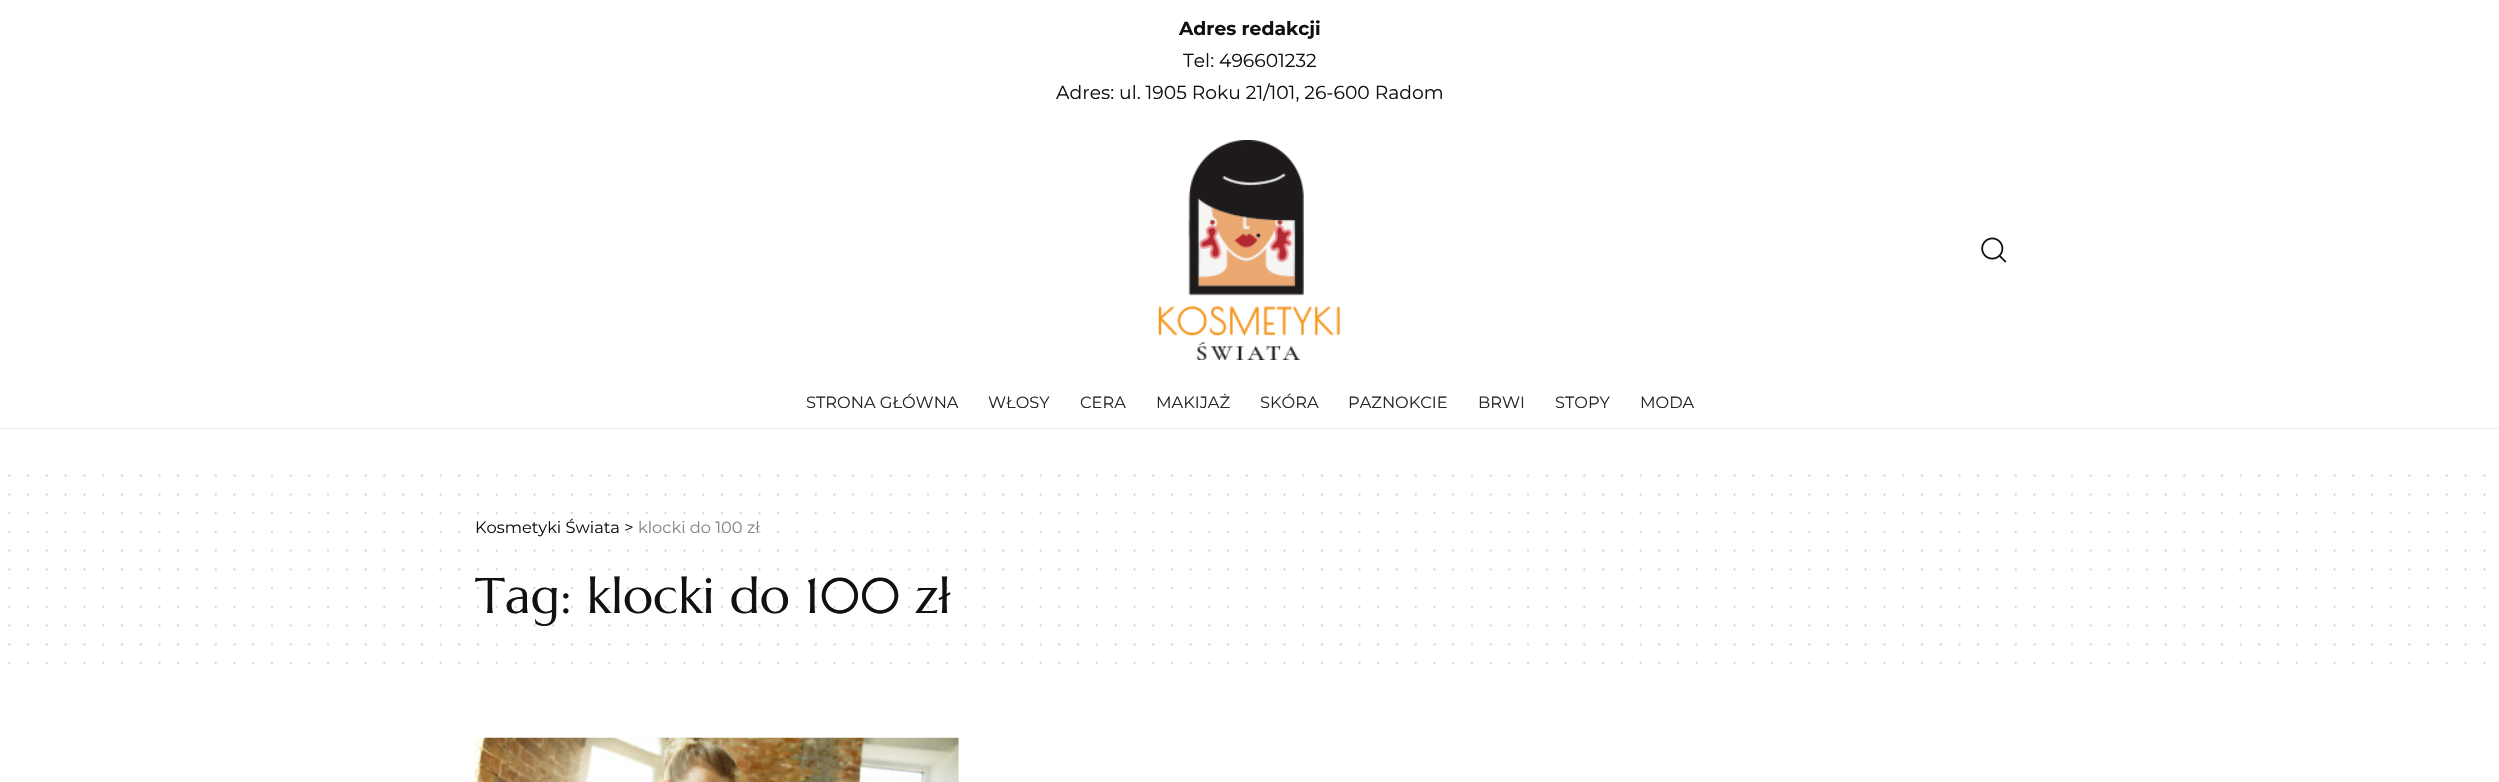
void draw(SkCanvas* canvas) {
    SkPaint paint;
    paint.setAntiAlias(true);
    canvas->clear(0xFFFFFFFF);
    SkFont font1(fontMgr->matchFamilyStyle("Montserrat", SkFontStyle::Bold()), 18.75f);
    font1.setSubpixel(true);
    paint.setColor(0xFF111111);
    canvas->drawString("Adres redakcji", 1179, 35, font1, paint);
    SkFont font2(fontMgr->matchFamilyStyle("Montserrat", SkFontStyle::Normal()), 18.75f);
    font2.setSubpixel(true);
    canvas->drawString("Tel: 496601232", 1183, 67, font2, paint);
    canvas->drawString("Adres: ul. 1905 Roku 21/101, 26-600 Radom", 1056, 99, font2, paint);
    canvas->drawImageRect(SkImages::DeferredFromEncodedData(SkData::MakeFromFileName("img1.png")), SkRect::MakeXYWH(1158, 140, 182, 220), SkSamplingOptions());
    canvas->drawImageRect(SkImages::DeferredFromEncodedData(SkData::MakeFromFileName("img2.png")), SkRect::MakeXYWH(1981, 237, 26, 26), SkSamplingOptions());
    SkFont font3(fontMgr->matchFamilyStyle("Montserrat", SkFontStyle::Normal()), 16.25f);
    font3.setSubpixel(true);
    paint.setColor(0xFF282828);
    canvas->drawString("STRONA GŁÓWNA", 806, 408, font3, paint);
    canvas->drawString("WŁOSY", 988, 408, font3, paint);
    canvas->drawString("CERA", 1080, 408, font3, paint);
    canvas->drawString("MAKIJAŻ", 1156, 408, font3, paint);
    canvas->drawString("SKÓRA", 1260, 408, font3, paint);
    canvas->drawString("PAZNOKCIE", 1348, 408, font3, paint);
    canvas->drawString("BRWI", 1478, 408, font3, paint);
    canvas->drawString("STOPY", 1555, 408, font3, paint);
    canvas->drawString("MODA", 1640, 408, font3, paint);
    paint.setColor(0xFFEDEDED);
    canvas->drawRect(SkRect::MakeXYWH(0, 428, 2499, 1), paint);
    paint.setStyle(SkPaint::kStroke_Style);
    paint.setStrokeWidth(2.5f);
    paint.setStrokeCap(SkPaint::kRound_Cap);
    paint.setColor(0xFFDBDBDB);
    paint.setPathEffect(SkDashPathEffect::Make({{0, 18.75f}}, 0));
    canvas->drawPath(SkPathBuilder().moveTo(9.4f, 475.6f).lineTo(2484.6f, 475.6f).detach(), paint);
    paint.setPathEffect(nullptr);
    paint.setPathEffect(SkDashPathEffect::Make({{0, 18.75f}}, 0));
    canvas->drawPath(SkPathBuilder().moveTo(9.4f, 494.4f).lineTo(2484.6f, 494.4f).detach(), paint);
    paint.setPathEffect(nullptr);
    paint.setPathEffect(SkDashPathEffect::Make({{0, 18.75f}}, 0));
    canvas->drawPath(SkPathBuilder().moveTo(9.4f, 513.1f).lineTo(2484.6f, 513.1f).detach(), paint);
    paint.setPathEffect(nullptr);
    paint.setStyle(SkPaint::kFill_Style);
    paint.setColor(0xFF111111);
    canvas->drawString("Kosmetyki Świata >", 475, 533, font3, paint);
    paint.setStyle(SkPaint::kStroke_Style);
    paint.setColor(0x26111111);
    paint.setPathEffect(SkDashPathEffect::Make({{0, 18.75f}}, 0));
    canvas->drawPath(SkPathBuilder().moveTo(9.4f, 531.9f).lineTo(2484.6f, 531.9f).detach(), paint);
    paint.setPathEffect(nullptr);
    paint.setColor(0xFFDBDBDB);
    paint.setPathEffect(SkDashPathEffect::Make({{0, 18.75f}}, 0));
    canvas->drawPath(SkPathBuilder().moveTo(9.4f, 550.6f).lineTo(2484.6f, 550.6f).detach(), paint);
    paint.setPathEffect(nullptr);
    paint.setPathEffect(SkDashPathEffect::Make({{0, 18.75f}}, 0));
    canvas->drawPath(SkPathBuilder().moveTo(9.4f, 569.4f).lineTo(2484.6f, 569.4f).detach(), paint);
    paint.setPathEffect(nullptr);
    SkFont font4(fontMgr->matchFamilyStyle("Marcellus", SkFontStyle::Normal()), 50);
    font4.setSubpixel(true);
    paint.setStyle(SkPaint::kFill_Style);
    paint.setColor(0xFF111111);
    canvas->drawString("Tag: klocki do 100 zł", 475, 613, font4, paint);
    paint.setStyle(SkPaint::kStroke_Style);
    paint.setColor(0x26111111);
    paint.setPathEffect(SkDashPathEffect::Make({{0, 18.75f}}, 0));
    canvas->drawPath(SkPathBuilder().moveTo(9.4f, 588.1f).lineTo(2484.6f, 588.1f).detach(), paint);
    paint.setPathEffect(nullptr);
    paint.setPathEffect(SkDashPathEffect::Make({{0, 18.75f}}, 0));
    canvas->drawPath(SkPathBuilder().moveTo(9.4f, 606.9f).lineTo(2484.6f, 606.9f).detach(), paint);
    paint.setPathEffect(nullptr);
    paint.setColor(0xFFDBDBDB);
    paint.setPathEffect(SkDashPathEffect::Make({{0, 18.75f}}, 0));
    canvas->drawPath(SkPathBuilder().moveTo(9.4f, 625.6f).lineTo(2484.6f, 625.6f).detach(), paint);
    paint.setPathEffect(nullptr);
    paint.setPathEffect(SkDashPathEffect::Make({{0, 18.75f}}, 0));
    canvas->drawPath(SkPathBuilder().moveTo(9.4f, 644.4f).lineTo(2484.6f, 644.4f).detach(), paint);
    paint.setPathEffect(nullptr);
    paint.setPathEffect(SkDashPathEffect::Make({{0, 18.75f}}, 0));
    canvas->drawPath(SkPathBuilder().moveTo(9.4f, 663.1f).lineTo(2484.6f, 663.1f).detach(), paint);
    paint.setPathEffect(nullptr);
    paint.setStyle(SkPaint::kFill_Style);
    paint.setColor(0xFF878787);
    canvas->drawString("klocki do 100 zł", 638, 533, font3, paint);
    canvas->drawImageRect(SkImages::DeferredFromEncodedData(SkData::MakeFromFileName("img3.png")), SkRect::MakeXYWH(475, 737, 484, 45), SkSamplingOptions());
}
